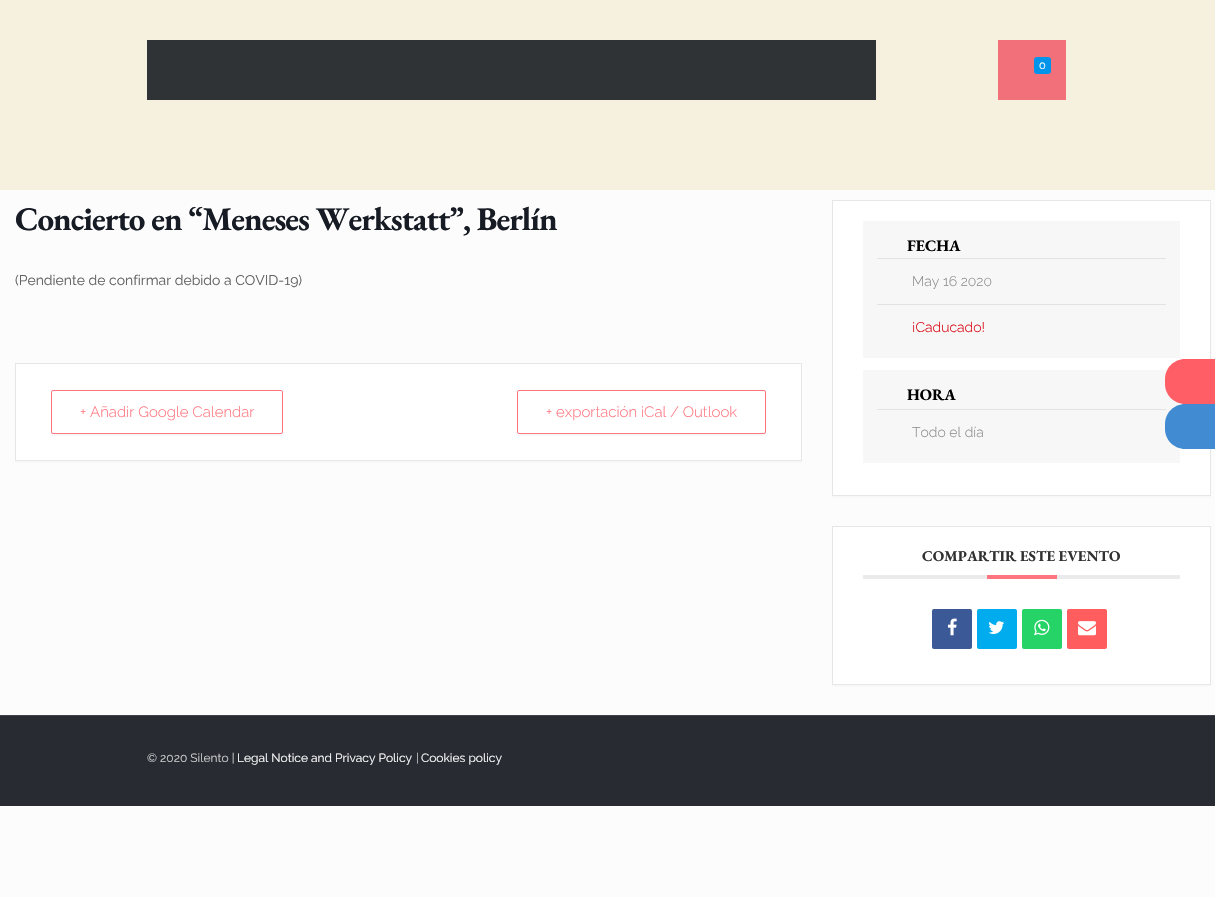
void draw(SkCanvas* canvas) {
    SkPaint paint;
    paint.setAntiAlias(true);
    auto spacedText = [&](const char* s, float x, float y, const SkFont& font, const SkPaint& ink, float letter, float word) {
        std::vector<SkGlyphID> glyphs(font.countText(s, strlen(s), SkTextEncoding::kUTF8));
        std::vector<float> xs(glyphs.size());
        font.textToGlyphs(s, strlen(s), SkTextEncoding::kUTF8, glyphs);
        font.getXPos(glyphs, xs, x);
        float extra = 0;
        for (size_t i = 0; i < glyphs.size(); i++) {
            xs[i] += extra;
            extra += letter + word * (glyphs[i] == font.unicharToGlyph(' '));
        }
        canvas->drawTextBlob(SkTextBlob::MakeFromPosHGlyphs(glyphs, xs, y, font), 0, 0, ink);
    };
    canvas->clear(0xFFFCFCFC);
    paint.setColor(0xFFF6F1DF);
    canvas->drawRect(SkRect::MakeXYWH(0, 0, 1215, 190), paint);
    paint.setColor(0xFF2F3335);
    canvas->drawRect(SkRect::MakeXYWH(147, 40, 729, 60), paint);
    paint.setColor(0xFFF2707A);
    canvas->drawRect(SkRect::MakeXYWH(998, 40, 68, 60), paint);
    paint.setColor(0xFF0095EB);
    canvas->drawRoundRect(SkRect::MakeXYWH(1034, 57, 17, 17), 3, 3, paint);
    SkFont font1(fontMgr->matchFamilyStyle("Raleway", SkFontStyle::Normal()), 11);
    font1.setSubpixel(true);
    paint.setColor(0xFFFFFFFF);
    canvas->drawString("0", 1039, 69, font1, paint);
    SkFont font2(fontMgr->matchFamilyStyle("EB Garamond", SkFontStyle::Bold()), 33);
    font2.setSubpixel(true);
    paint.setColor(0xFF171C24);
    spacedText("Concierto en “Meneses Werkstatt”, Berlín", 15, 230, font2, paint, -1, 0);
    SkFont font3(fontMgr->matchFamilyStyle("Raleway", SkFontStyle::Normal()), 14);
    font3.setSubpixel(true);
    paint.setColor(0xFF616161);
    canvas->drawString("(Pendiente de confirmar debido a COVID-19)", 15, 285, font3, paint);
    paint.setColor(0xFFF8F8F8);
    canvas->drawRect(SkRect::MakeXYWH(15, 461, 787, 2), paint);
    paint.setColor(0xFFFFFFFF);
    canvas->drawRect(SkRect::MakeXYWH(15.5f, 363.5f, 786, 97), paint);
    paint.setStyle(SkPaint::kStroke_Style);
    paint.setStrokeWidth(1);
    paint.setColor(0xFFE6E6E6);
    canvas->drawRect(SkRect::MakeXYWH(15.5f, 363.5f, 786, 97), paint);
    paint.setStyle(SkPaint::kFill_Style);
    paint.setColor(0xFFF7F7F7);
    canvas->drawPath(SkPathBuilder().moveTo(51, 432).cubicTo(51, 434, 51, 436, 53, 436).lineTo(281, 436).cubicTo(283, 436, 283, 434, 283, 432).cubicTo(283, 433, 282, 434, 281, 434).lineTo(53, 434).cubicTo(52, 434, 51, 433, 51, 432).close().detach(), paint);
    paint.setStyle(SkPaint::kStroke_Style);
    paint.setColor(0xFFFF757F);
    canvas->drawRoundRect(SkRect::MakeXYWH(51.5f, 390.5f, 231, 43), 1.5f, 1.5f, paint);
    SkFont font4(fontMgr->matchFamilyStyle("Raleway", SkFontStyle(300, SkFontStyle::kNormal_Width, SkFontStyle::kUpright_Slant)), 15);
    font4.setSubpixel(true);
    paint.setStyle(SkPaint::kFill_Style);
    canvas->drawString("+ Añadir Google Calendar", 80, 417, font4, paint);
    paint.setColor(0xFFF7F7F7);
    canvas->drawPath(SkPathBuilder().moveTo(517, 432).cubicTo(517, 434, 517, 436, 519, 436).lineTo(764, 436).cubicTo(766, 436, 766, 434, 766, 432).cubicTo(766, 433, 765, 434, 764, 434).lineTo(519, 434).cubicTo(518, 434, 517, 433, 517, 432).close().detach(), paint);
    paint.setStyle(SkPaint::kStroke_Style);
    paint.setColor(0xFFFF757F);
    canvas->drawRoundRect(SkRect::MakeXYWH(517.5f, 390.5f, 248, 43), 1.5f, 1.5f, paint);
    paint.setStyle(SkPaint::kFill_Style);
    canvas->drawString("+ exportación iCal / Outlook", 546, 417, font4, paint);
    paint.setColor(0xFFF8F8F8);
    canvas->drawRect(SkRect::MakeXYWH(832, 496, 379, 2), paint);
    paint.setColor(0xFFFFFFFF);
    canvas->drawRect(SkRect::MakeXYWH(832.5f, 200.5f, 378, 295), paint);
    paint.setStyle(SkPaint::kStroke_Style);
    paint.setColor(0xFFE6E6E6);
    canvas->drawRect(SkRect::MakeXYWH(832.5f, 200.5f, 378, 295), paint);
    paint.setStyle(SkPaint::kFill_Style);
    paint.setColor(0xFFF7F7F7);
    canvas->drawRect(SkRect::MakeXYWH(863, 221, 317, 137), paint);
    SkFont font5(fontMgr->matchFamilyStyle("EB Garamond", SkFontStyle::Bold()), 16);
    font5.setSubpixel(true);
    paint.setColor(0xFF000000);
    canvas->drawString("FECHA", 907, 251, font5, paint);
    paint.setColor(0xFFE3E3E3);
    canvas->drawRect(SkRect::MakeXYWH(877, 258, 289, 1), paint);
    SkFont font6(fontMgr->matchFamilyStyle("Raleway", SkFontStyle(300, SkFontStyle::kNormal_Width, SkFontStyle::kUpright_Slant)), 14);
    font6.setSubpixel(true);
    paint.setColor(0xFF8D8D8D);
    canvas->drawString("May 16 2020", 912, 286, font6, paint);
    paint.setColor(0xFFE3E3E3);
    canvas->drawRect(SkRect::MakeXYWH(877, 304, 289, 1), paint);
    paint.setColor(0xFFD8000C);
    canvas->drawString("¡Caducado!", 912, 332, font6, paint);
    paint.setColor(0xFFF7F7F7);
    canvas->drawRect(SkRect::MakeXYWH(863, 370, 317, 93), paint);
    paint.setColor(0xFF000000);
    canvas->drawString("HORA", 907, 400, font5, paint);
    paint.setColor(0xFFE3E3E3);
    canvas->drawRect(SkRect::MakeXYWH(877, 409, 289, 1), paint);
    paint.setColor(0xFF8D8D8D);
    canvas->drawString("Todo el día", 912, 437, font6, paint);
    paint.setColor(0xFFF8F8F8);
    canvas->drawRect(SkRect::MakeXYWH(832, 685, 379, 2), paint);
    paint.setColor(0xFFFFFFFF);
    canvas->drawRect(SkRect::MakeXYWH(832.5f, 526.5f, 378, 158), paint);
    paint.setStyle(SkPaint::kStroke_Style);
    paint.setColor(0xFFE6E6E6);
    canvas->drawRect(SkRect::MakeXYWH(832.5f, 526.5f, 378, 158), paint);
    paint.setStyle(SkPaint::kFill_Style);
    paint.setColor(0xFFEBEBEB);
    canvas->drawRect(SkRect::MakeXYWH(863, 575, 317, 4), paint);
    SkFont font7(fontMgr->matchFamilyStyle("EB Garamond", SkFontStyle::Bold()), 15);
    font7.setSubpixel(true);
    paint.setColor(0xFF313131);
    canvas->drawString("COMPARTIR ESTE EVENTO", 922, 561, font7, paint);
    paint.setColor(0xFFFF757F);
    canvas->drawRect(SkRect::MakeXYWH(987, 575, 70, 4), paint);
    paint.setColor(0xFF3B5996);
    canvas->drawRoundRect(SkRect::MakeXYWH(932, 609, 40, 40), 2, 2, paint);
    canvas->drawImageRect(SkImages::DeferredFromEncodedData(SkData::MakeFromFileName("img1.png")), SkRect::MakeXYWH(947, 618, 10, 18), SkSamplingOptions());
    paint.setColor(0xFF00ACEE);
    canvas->drawRoundRect(SkRect::MakeXYWH(977, 609, 40, 40), 2, 2, paint);
    canvas->drawImageRect(SkImages::DeferredFromEncodedData(SkData::MakeFromFileName("img2.png")), SkRect::MakeXYWH(988, 621, 17, 13), SkSamplingOptions());
    paint.setColor(0xFF25D366);
    canvas->drawRoundRect(SkRect::MakeXYWH(1022, 609, 40, 40), 2, 2, paint);
    canvas->drawImageRect(SkImages::DeferredFromEncodedData(SkData::MakeFromFileName("img3.png")), SkRect::MakeXYWH(1034, 619, 16, 17), SkSamplingOptions());
    paint.setColor(0xFFFF5D5E);
    canvas->drawRoundRect(SkRect::MakeXYWH(1067, 609, 40, 40), 2, 2, paint);
    canvas->drawImageRect(SkImages::DeferredFromEncodedData(SkData::MakeFromFileName("img4.png")), SkRect::MakeXYWH(1078, 621, 18, 15), SkSamplingOptions());
    paint.setColor(0xFF292B33);
    canvas->drawRect(SkRect::MakeXYWH(0, 716, 1215, 90), paint);
    paint.setColor(0xFF3E4047);
    canvas->drawRect(SkRect::MakeXYWH(0, 715, 1215, 1), paint);
    SkFont font8(fontMgr->matchFamilyStyle("Raleway", SkFontStyle::Normal()), 12);
    font8.setSubpixel(true);
    paint.setColor(0xFFCCCCCC);
    canvas->drawString("© 2020 Silento |", 147, 762, font8, paint);
    paint.setColor(0xFFFFFFFF);
    canvas->drawString("Legal Notice and Privacy Policy", 237, 762, font8, paint);
    paint.setColor(0xFFCCCCCC);
    canvas->drawString("|", 416, 762, font8, paint);
    paint.setColor(0xFFFFFFFF);
    canvas->drawString("Cookies policy", 421, 762, font8, paint);
    paint.setColor(0xFFFF5E67);
    canvas->drawPath(SkPathBuilder().moveTo(1185, 359).lineTo(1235, 359).lineTo(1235, 404).lineTo(1185, 404).cubicTo(1174, 404, 1165, 395, 1165, 384).lineTo(1165, 379).cubicTo(1165, 368, 1174, 359, 1185, 359).close().detach(), paint);
    paint.setColor(0xFF408BD1);
    canvas->drawPath(SkPathBuilder().moveTo(1185, 404).lineTo(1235, 404).lineTo(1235, 449).lineTo(1185, 449).cubicTo(1174, 449, 1165, 440, 1165, 429).lineTo(1165, 424).cubicTo(1165, 413, 1174, 404, 1185, 404).close().detach(), paint);
}
